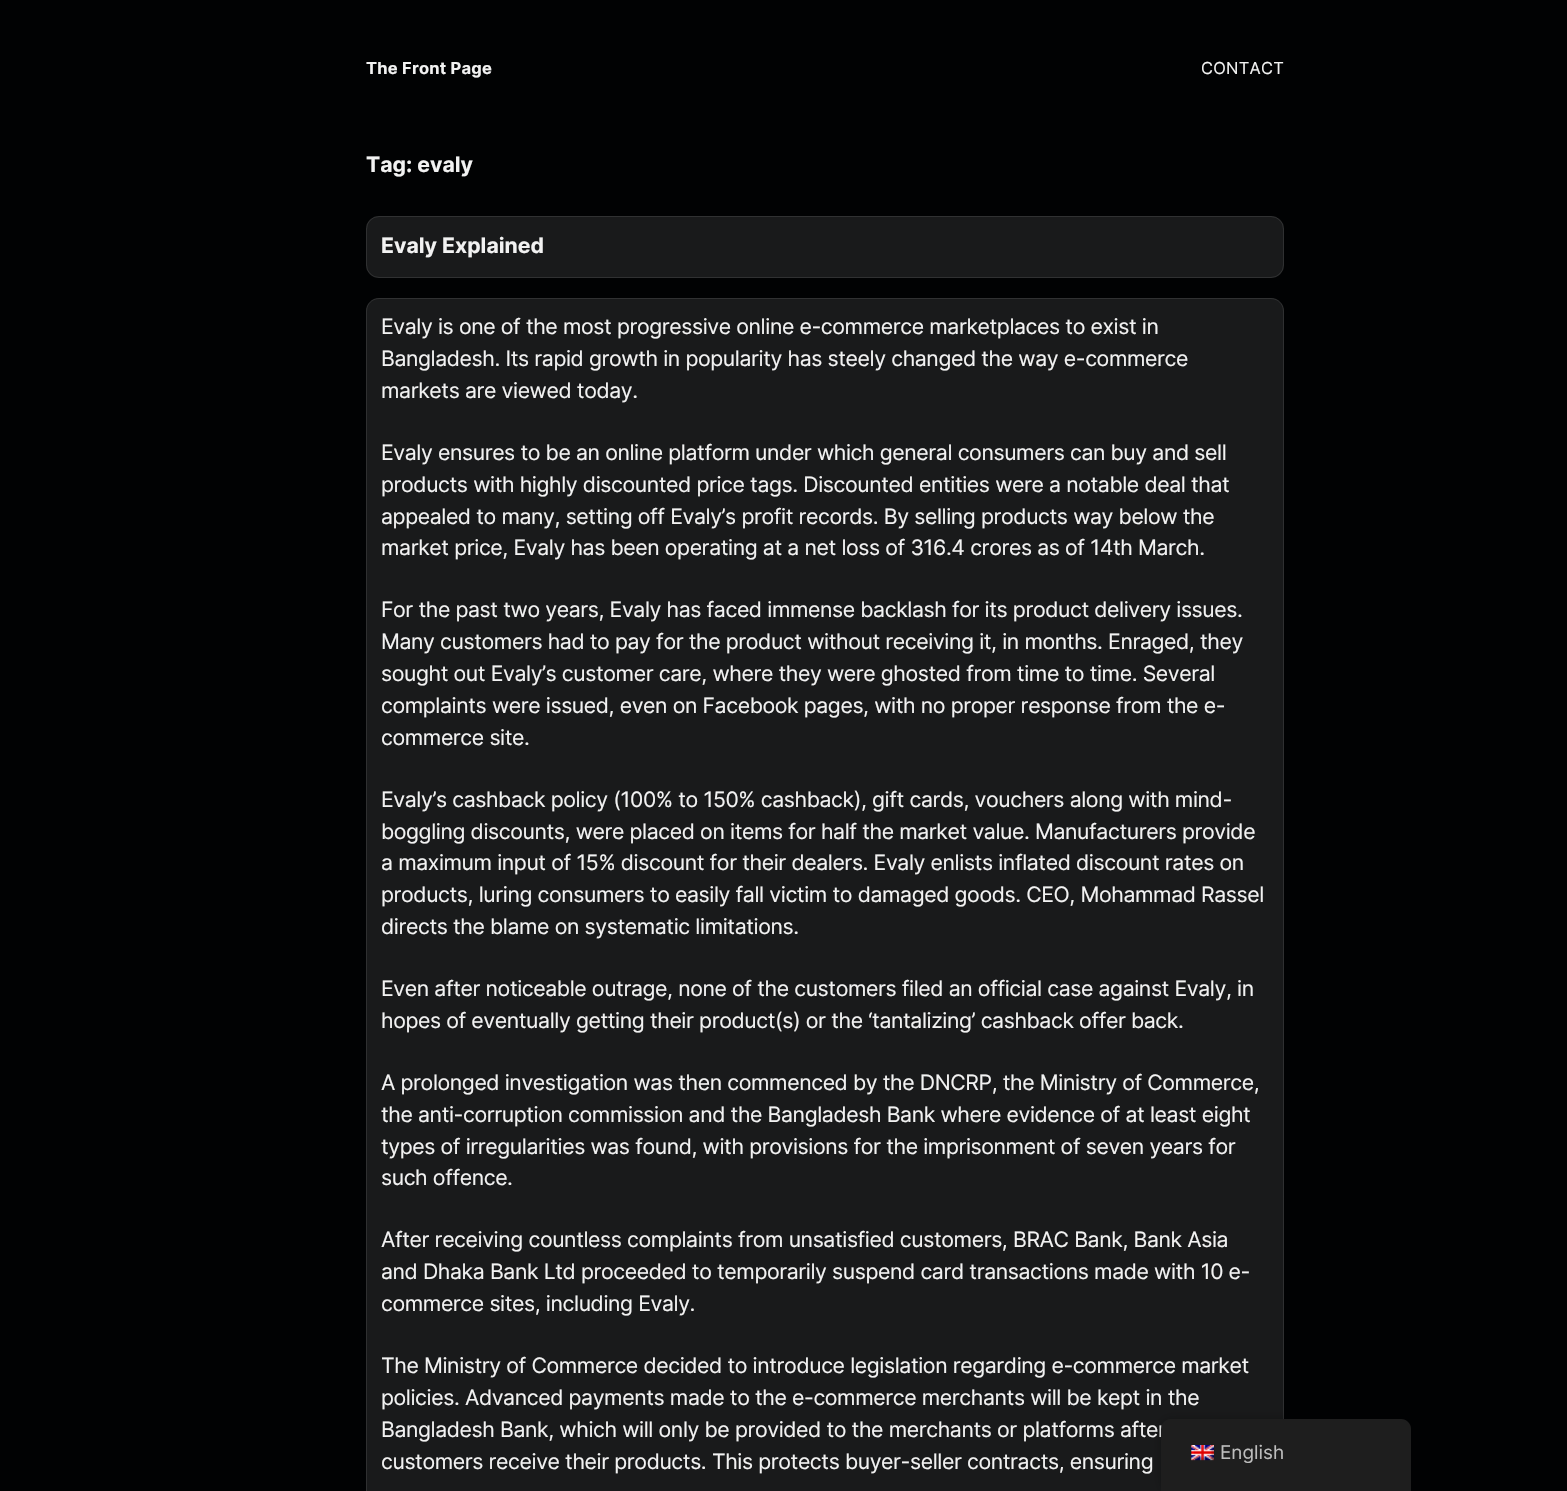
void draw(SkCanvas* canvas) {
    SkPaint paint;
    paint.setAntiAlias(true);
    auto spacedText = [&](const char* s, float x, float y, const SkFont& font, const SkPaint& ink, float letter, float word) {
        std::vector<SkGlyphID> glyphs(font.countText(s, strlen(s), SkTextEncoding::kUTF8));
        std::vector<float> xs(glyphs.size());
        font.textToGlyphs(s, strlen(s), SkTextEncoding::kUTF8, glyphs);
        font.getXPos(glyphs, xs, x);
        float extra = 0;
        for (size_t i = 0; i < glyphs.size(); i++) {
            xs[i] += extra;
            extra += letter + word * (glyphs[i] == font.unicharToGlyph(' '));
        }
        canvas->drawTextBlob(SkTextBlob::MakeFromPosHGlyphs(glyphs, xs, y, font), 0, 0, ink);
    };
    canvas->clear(0xFF010203);
    SkFont font1(fontMgr->matchFamilyStyle("Inter", SkFontStyle::Bold()), 16.5f);
    font1.setSubpixel(true);
    paint.setColor(0xFFF2F2F2);
    spacedText("The Front Page", 366, 74, font1, paint, 0.25f, 0);
    SkFont font2(fontMgr->matchFamilyStyle("Inter", SkFontStyle::Normal()), 16.5f);
    font2.setSubpixel(true);
    spacedText("CONTACT", 1201, 74, font2, paint, 0.25f, 0);
    SkFont font3(fontMgr->matchFamilyStyle("Inter", SkFontStyle::Bold()), 21.25f);
    font3.setSubpixel(true);
    canvas->drawString("Tag: evaly", 366, 172, font3, paint);
    paint.setColor(0xFF191A1B);
    canvas->drawRoundRect(SkRect::MakeXYWH(366, 216, 918, 62), 13, 13, paint);
    paint.setStyle(SkPaint::kStroke_Style);
    paint.setStrokeWidth(1);
    paint.setColor(0x1AF2F2F2);
    canvas->drawRoundRect(SkRect::MakeXYWH(366.5f, 216.5f, 917, 61), 12.5f, 12.5f, paint);
    paint.setStyle(SkPaint::kFill_Style);
    paint.setColor(0xFFF2F2F2);
    canvas->drawString("Evaly Explained", 381, 253, font3, paint);
    paint.setColor(0xFF191A1B);
    canvas->drawPath(SkPathBuilder().moveTo(379, 298).lineTo(1271, 298).cubicTo(1278, 298, 1284, 304, 1284, 311).lineTo(1284, 1491).cubicTo(1284, 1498, 1278, 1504, 1271, 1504).lineTo(366, 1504).lineTo(366, 311).cubicTo(366, 304, 372, 298, 379, 298).close().detach(), paint);
    paint.setStyle(SkPaint::kStroke_Style);
    paint.setColor(0x1AF2F2F2);
    canvas->drawPath(SkPathBuilder().moveTo(379, 298.5f).lineTo(1271, 298.5f).cubicTo(1278, 298.5f, 1283.5f, 304, 1283.5f, 311).lineTo(1283.5f, 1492).cubicTo(1283.5f, 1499, 1278, 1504.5f, 1271, 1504.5f).lineTo(366.5f, 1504.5f).lineTo(366.5f, 311).cubicTo(366.5f, 304, 372, 298.5f, 379, 298.5f).close().detach(), paint);
    SkFont font4(fontMgr->matchFamilyStyle("Inter", SkFontStyle::Normal()), 21.25f);
    font4.setSubpixel(true);
    paint.setStyle(SkPaint::kFill_Style);
    paint.setColor(0xFFF2F2F2);
    spacedText("Evaly is one of the most progressive online e-commerce marketplaces to exist in", 381, 334, font4, paint, -0.4f, 0);
    spacedText("Bangladesh. Its rapid growth in popularity has steely changed the way e-commerce", 381, 366, font4, paint, -0.4f, 0);
    spacedText("markets are viewed today.", 381, 398, font4, paint, -0.4f, 0);
    spacedText("Evaly ensures to be an online platform under which general consumers can buy and sell", 381, 460, font4, paint, -0.4f, 0);
    spacedText("products with highly discounted price tags. Discounted entities were a notable deal that", 381, 492, font4, paint, -0.4f, 0);
    spacedText("appealed to many, setting off Evaly’s profit records. By selling products way below the", 381, 524, font4, paint, -0.4f, 0);
    spacedText("market price, Evaly has been operating at a net loss of 316.4 crores as of 14th March.", 381, 555, font4, paint, -0.4f, 0);
    spacedText("For the past two years, Evaly has faced immense backlash for its product delivery issues.", 381, 617, font4, paint, -0.4f, 0);
    spacedText("Many customers had to pay for the product without receiving it, in months. Enraged, they", 381, 649, font4, paint, -0.4f, 0);
    spacedText("sought out Evaly’s customer care, where they were ghosted from time to time. Several", 381, 681, font4, paint, -0.4f, 0);
    spacedText("complaints were issued, even on Facebook pages, with no proper response from the e-", 381, 713, font4, paint, -0.4f, 0);
    spacedText("commerce site.", 381, 745, font4, paint, -0.4f, 0);
    spacedText("Evaly’s cashback policy (100% to 150% cashback), gift cards, vouchers along with mind-", 381, 807, font4, paint, -0.4f, 0);
    spacedText("boggling discounts, were placed on items for half the market value. Manufacturers provide", 381, 839, font4, paint, -0.4f, 0);
    spacedText("a maximum input of 15% discount for their dealers. Evaly enlists inflated discount rates on", 381, 870, font4, paint, -0.4f, 0);
    spacedText("products, luring consumers to easily fall victim to damaged goods. CEO, Mohammad Rassel", 381, 902, font4, paint, -0.4f, 0);
    spacedText("directs the blame on systematic limitations.", 381, 934, font4, paint, -0.4f, 0);
    spacedText("Even after noticeable outrage, none of the customers filed an official case against Evaly, in", 381, 996, font4, paint, -0.4f, 0);
    spacedText("hopes of eventually getting their product(s) or the ‘tantalizing’ cashback offer back.", 381, 1028, font4, paint, -0.4f, 0);
    spacedText("A prolonged investigation was then commenced by the DNCRP, the Ministry of Commerce,", 381, 1090, font4, paint, -0.4f, 0);
    spacedText("the anti-corruption commission and the Bangladesh Bank where evidence of at least eight", 381, 1122, font4, paint, -0.4f, 0);
    spacedText("types of irregularities was found, with provisions for the imprisonment of seven years for", 381, 1154, font4, paint, -0.4f, 0);
    spacedText("such offence.", 381, 1185, font4, paint, -0.4f, 0);
    spacedText("After receiving countless complaints from unsatisfied customers, BRAC Bank, Bank Asia", 381, 1247, font4, paint, -0.4f, 0);
    spacedText("and Dhaka Bank Ltd proceeded to temporarily suspend card transactions made with 10 e-", 381, 1279, font4, paint, -0.4f, 0);
    spacedText("commerce sites, including Evaly.", 381, 1311, font4, paint, -0.4f, 0);
    spacedText("The Ministry of Commerce decided to introduce legislation regarding e-commerce market", 381, 1373, font4, paint, -0.4f, 0);
    spacedText("policies. Advanced payments made to the e-commerce merchants will be kept in the", 381, 1405, font4, paint, -0.4f, 0);
    spacedText("Bangladesh Bank, which will only be provided to the merchants or platforms after", 381, 1437, font4, paint, -0.4f, 0);
    spacedText("customers receive their products. This protects buyer-seller contracts, ensuring", 381, 1469, font4, paint, -0.4f, 0);
    paint.setColor(0x40000000);
    paint.setMaskFilter(SkMaskFilter::MakeBlur(kNormal_SkBlurStyle, 5));
    canvas->drawRoundRect(SkRect::MakeXYWH(1161, 1419, 250, 72), 10, 10, paint);
    paint.setMaskFilter(nullptr);
    paint.setColor(0xFF1E1E1E);
    canvas->drawPath(SkPathBuilder().moveTo(1171, 1419).lineTo(1401, 1419).cubicTo(1406.5f, 1419, 1411, 1423.5f, 1411, 1429).lineTo(1411, 1491).lineTo(1161, 1491).lineTo(1161, 1429).cubicTo(1161, 1423.5f, 1165.5f, 1419, 1171, 1419).close().detach(), paint);
    canvas->drawImageRect(SkImages::DeferredFromEncodedData(SkData::MakeFromFileName("img1.png")), SkRect::MakeXYWH(1191, 1445, 23, 16), SkSamplingOptions());
    SkFont font5(fontMgr->matchFamilyStyle("Inter", SkFontStyle::Normal()), 19);
    font5.setSubpixel(true);
    paint.setColor(0xFFBDBDBD);
    canvas->drawString("English", 1220, 1459, font5, paint);
}
